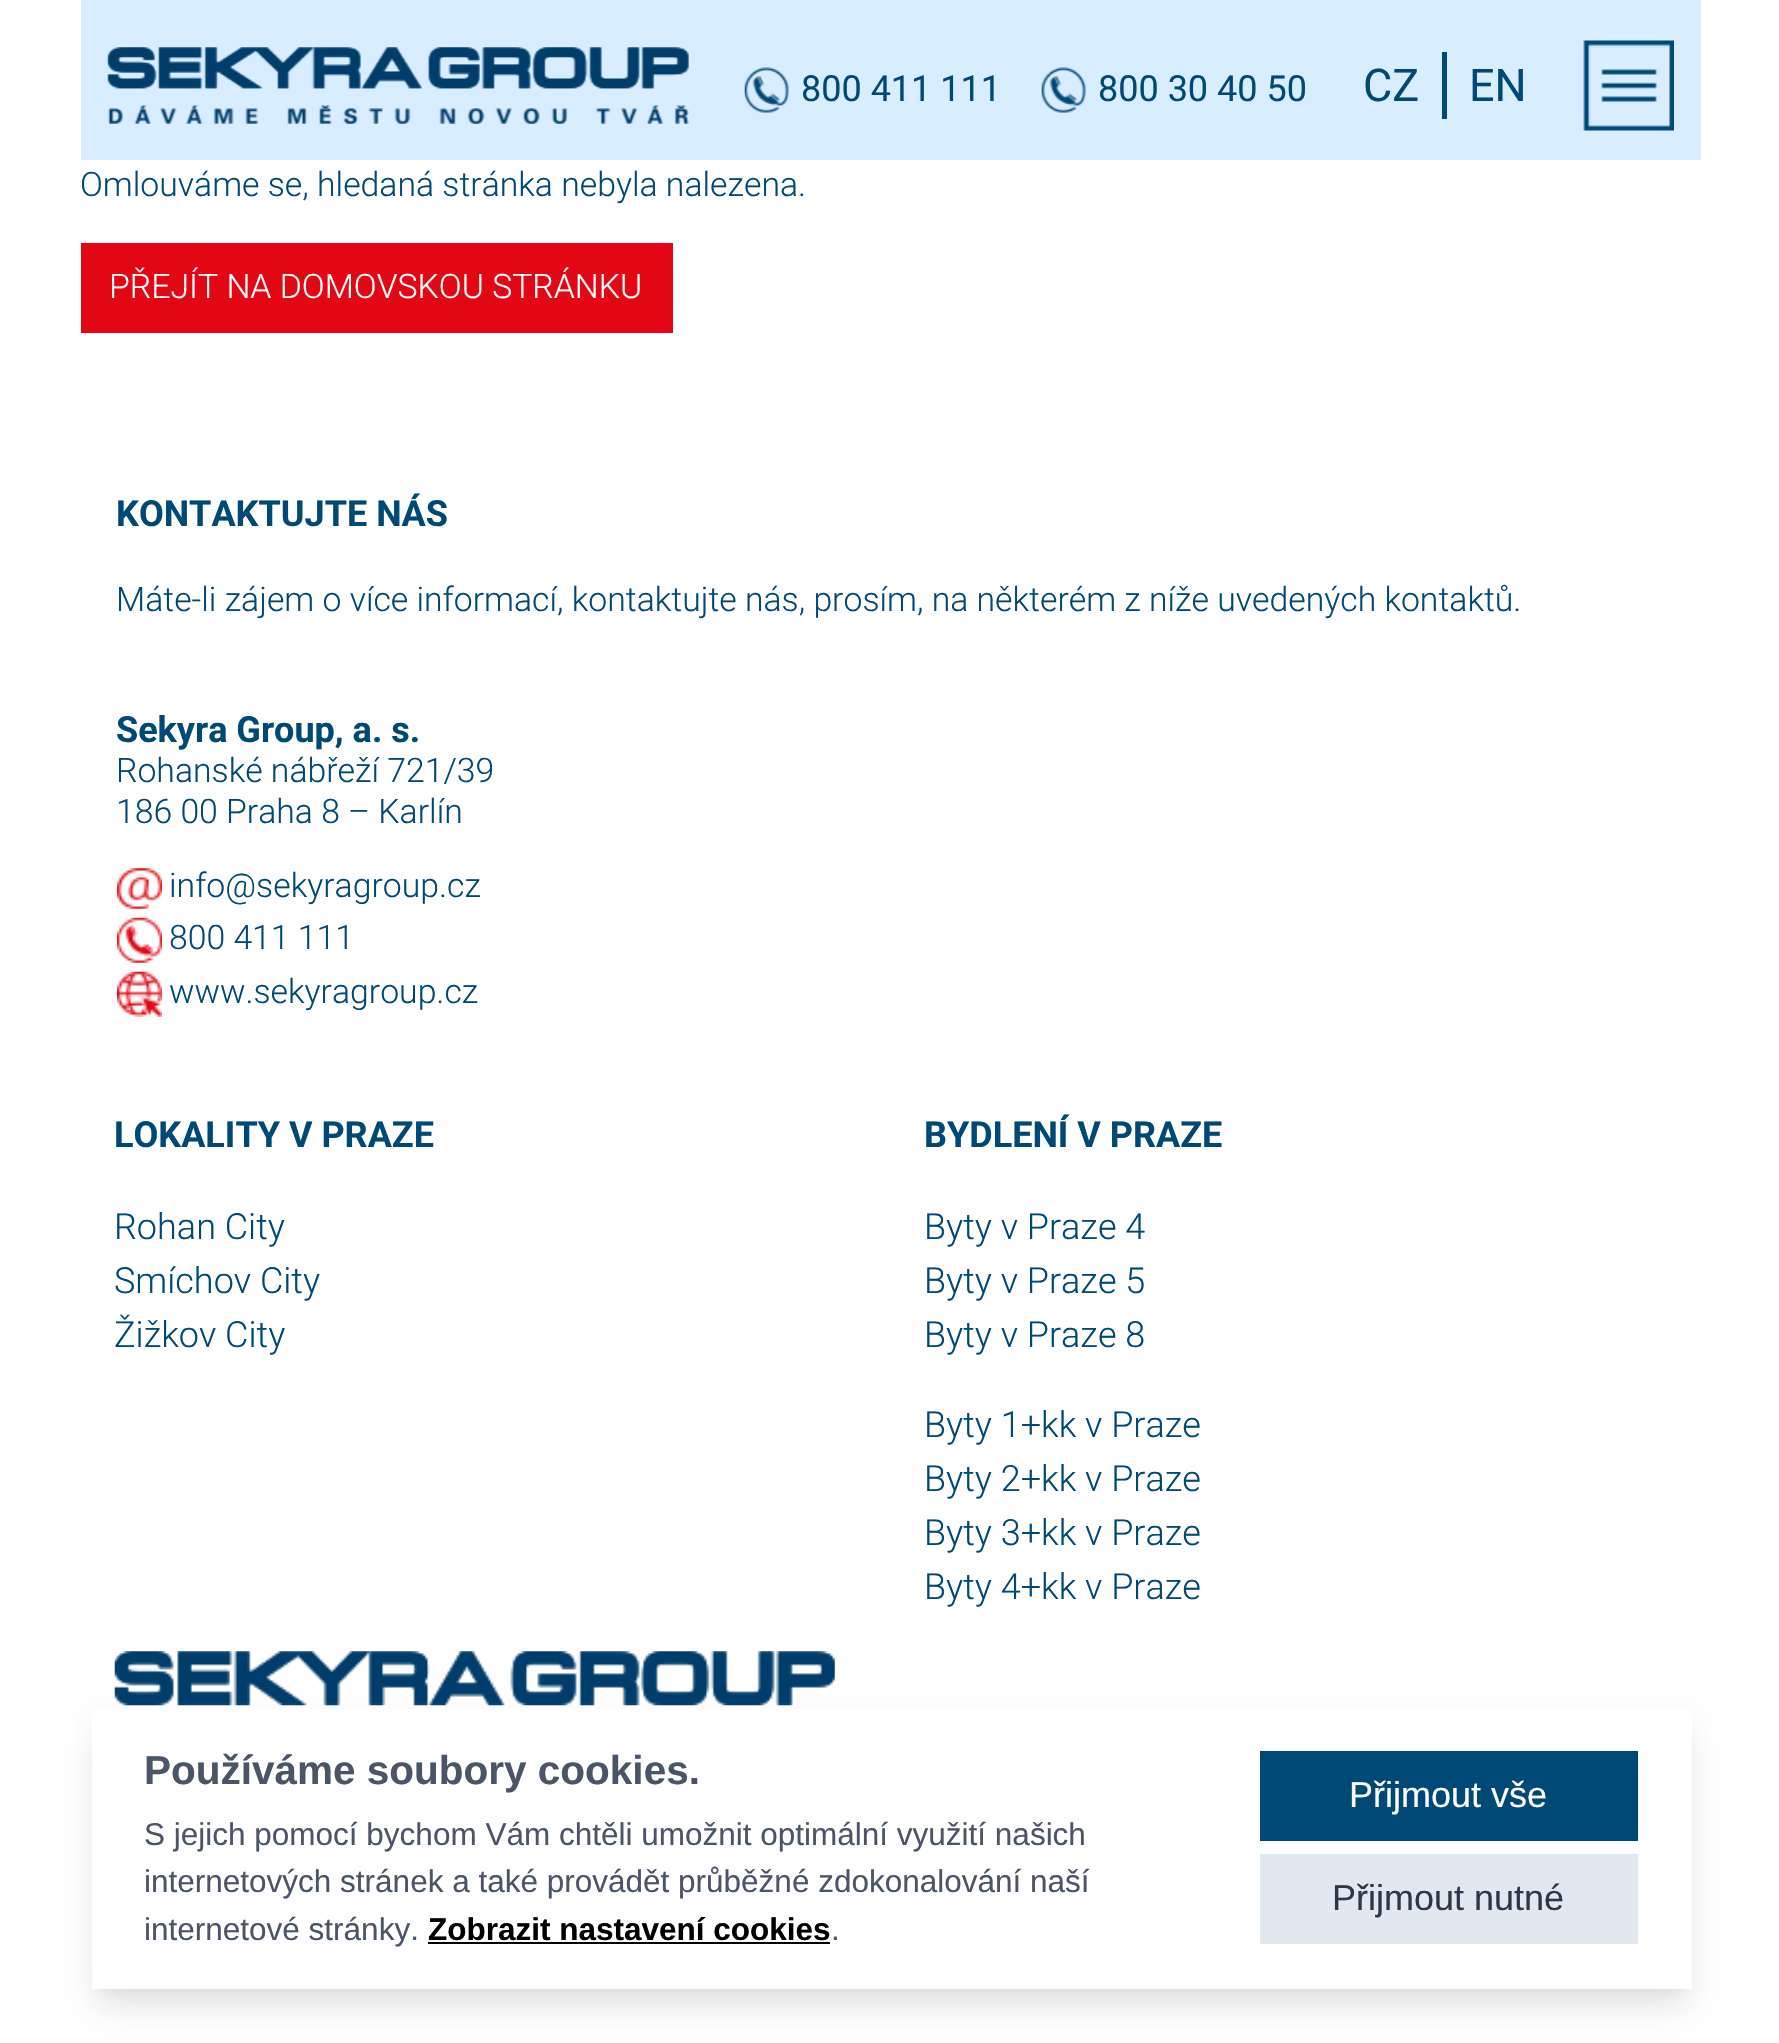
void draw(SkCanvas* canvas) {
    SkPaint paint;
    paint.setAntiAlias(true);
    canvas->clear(0xFFFFFFFF);
    paint.setColor(0xFFD8EDFF);
    canvas->drawRect(SkRect::MakeXYWH(81, 0, 1620, 160), paint);
    canvas->drawImageRect(SkImages::DeferredFromEncodedData(SkData::MakeFromFileName("img1.png")), SkRect::MakeXYWH(107, 47, 582, 77), SkSamplingOptions());
    canvas->drawImageRect(SkImages::DeferredFromEncodedData(SkData::MakeFromFileName("img2.png")), SkRect::MakeXYWH(744, 67, 45, 46), SkSamplingOptions());
    SkFont font1(fontMgr->matchFamilyStyle("Roboto", SkFontStyle::Normal()), 36);
    font1.setSubpixel(true);
    paint.setColor(0xFF004976);
    canvas->drawString("800 411 111", 801, 101, font1, paint);
    canvas->drawImageRect(SkImages::DeferredFromEncodedData(SkData::MakeFromFileName("img2.png")), SkRect::MakeXYWH(1041, 67, 45, 46), SkSamplingOptions());
    canvas->drawString("800 30 40 50", 1098, 101, font1, paint);
    canvas->drawRect(SkRect::MakeXYWH(1442, 52, 5, 67), paint);
    SkFont font2(fontMgr->matchFamilyStyle("Roboto", SkFontStyle::Normal()), 45);
    font2.setSubpixel(true);
    canvas->drawString("CZ", 1363, 101, font2, paint);
    canvas->drawString("EN", 1469, 101, font2, paint);
    canvas->drawImageRect(SkImages::DeferredFromEncodedData(SkData::MakeFromFileName("img3.png")), SkRect::MakeXYWH(1583, 40, 91, 91), SkSamplingOptions());
    SkFont font3(fontMgr->matchFamilyStyle("Roboto", SkFontStyle(300, SkFontStyle::kNormal_Width, SkFontStyle::kUpright_Slant)), 33.75f);
    font3.setSubpixel(true);
    canvas->drawString("Omlouváme se, hledaná stránka nebyla nalezena.", 80, 196, font3, paint);
    paint.setColor(0xFFE30613);
    canvas->drawRect(SkRect::MakeXYWH(81, 243, 592, 90), paint);
    paint.setColor(0xFFFFFFFF);
    canvas->drawString("PŘEJÍT NA DOMOVSKOU STRÁNKU", 109, 298, font3, paint);
    SkFont font4(fontMgr->matchFamilyStyle("Roboto", SkFontStyle::Bold()), 36);
    font4.setSubpixel(true);
    paint.setColor(0xFF004976);
    canvas->drawString("KONTAKTUJTE NÁS", 116, 526, font4, paint);
    canvas->drawString("Máte-li zájem o více informací, kontaktujte nás, prosím, na některém z níže uvedených kontaktů.", 116, 611, font3, paint);
    canvas->drawString("Sekyra Group, a. s.", 116, 742, font4, paint);
    canvas->drawString("Rohanské nábřeží 721/39", 116, 782, font3, paint);
    canvas->drawString("186 00 Praha 8 – Karlín", 116, 823, font3, paint);
    canvas->drawImageRect(SkImages::DeferredFromEncodedData(SkData::MakeFromFileName("img4.png")), SkRect::MakeXYWH(117, 868, 45, 41), SkSamplingOptions());
    canvas->drawString("info@sekyragroup.cz", 169, 897, font3, paint);
    canvas->drawImageRect(SkImages::DeferredFromEncodedData(SkData::MakeFromFileName("img5.png")), SkRect::MakeXYWH(117, 917, 45, 46), SkSamplingOptions());
    canvas->drawString("800 411 111", 169, 949, font3, paint);
    canvas->drawImageRect(SkImages::DeferredFromEncodedData(SkData::MakeFromFileName("img6.png")), SkRect::MakeXYWH(117, 971, 45, 46), SkSamplingOptions());
    canvas->drawString("www.sekyragroup.cz", 169, 1003, font3, paint);
    canvas->drawString("LOKALITY V PRAZE", 114, 1147, font4, paint);
    SkFont font5(fontMgr->matchFamilyStyle("Roboto", SkFontStyle(300, SkFontStyle::kNormal_Width, SkFontStyle::kUpright_Slant)), 36);
    font5.setSubpixel(true);
    canvas->drawString("Rohan City", 114, 1239, font5, paint);
    canvas->drawString("Smíchov City", 114, 1293, font5, paint);
    canvas->drawString("Žižkov City", 114, 1347, font5, paint);
    canvas->drawString("BYDLENÍ V PRAZE", 924, 1147, font4, paint);
    canvas->drawString("Byty v Praze 4", 924, 1239, font5, paint);
    canvas->drawString("Byty v Praze 5", 924, 1293, font5, paint);
    canvas->drawString("Byty v Praze 8", 924, 1347, font5, paint);
    canvas->drawString("Byty 1+kk v Praze", 924, 1437, font5, paint);
    canvas->drawString("Byty 2+kk v Praze", 924, 1491, font5, paint);
    canvas->drawString("Byty 3+kk v Praze", 924, 1545, font5, paint);
    canvas->drawString("Byty 4+kk v Praze", 924, 1599, font5, paint);
    canvas->drawImageRect(SkImages::DeferredFromEncodedData(SkData::MakeFromFileName("img7.png")), SkRect::MakeXYWH(114, 1651, 721, 55), SkSamplingOptions());
    paint.setColor(0x0D000000);
    paint.setMaskFilter(SkMaskFilter::MakeBlur(kNormal_SkBlurStyle, 7));
    canvas->drawRect(SkRect::MakeXYWH(97, 1719, 1591, 275), paint);
    paint.setMaskFilter(nullptr);
    paint.setColor(0x1A000000);
    paint.setMaskFilter(SkMaskFilter::MakeBlur(kNormal_SkBlurStyle, 17));
    canvas->drawRect(SkRect::MakeXYWH(99, 1735, 1586, 270), paint);
    paint.setMaskFilter(nullptr);
    paint.setColor(0xFFFFFFFF);
    canvas->drawRect(SkRect::MakeXYWH(92, 1709, 1600, 280), paint);
    SkFont font6(fontMgr->matchFamilyStyle("Liberation Sans", SkFontStyle::Bold()), 40.5f);
    font6.setSubpixel(true);
    paint.setColor(0xFF4A5568);
    canvas->drawString("Používáme soubory cookies.", 144, 1784, font6, paint);
    SkFont font7(fontMgr->matchFamilyStyle("Liberation Sans", SkFontStyle::Normal()), 31.5f);
    font7.setSubpixel(true);
    canvas->drawString("S jejich pomocí bychom Vám chtěli umožnit optimální využití našich", 144, 1845, font7, paint);
    canvas->drawString("internetových stránek a také provádět průběžné zdokonalování naší", 144, 1892, font7, paint);
    canvas->drawString("internetové stránky.", 144, 1940, font7, paint);
    SkFont font8(fontMgr->matchFamilyStyle("Liberation Sans", SkFontStyle::Bold()), 31.5f);
    font8.setSubpixel(true);
    paint.setColor(0xFF000000);
    canvas->drawString("Zobrazit nastavení cookies", 428, 1940, font8, paint);
    canvas->drawRect(SkRect::MakeXYWH(428, 1942, 402, 2), paint);
    paint.setColor(0xFF4A5568);
    canvas->drawString(".", 831, 1940, font7, paint);
    paint.setColor(0xFF004976);
    canvas->drawRect(SkRect::MakeXYWH(1260, 1751, 378, 90), paint);
    SkFont font9(fontMgr->matchFamilyStyle("Liberation Sans", SkFontStyle::Normal()), 36);
    font9.setSubpixel(true);
    paint.setColor(0xFFFFFFFF);
    canvas->drawString("Přijmout vše", 1349, 1807, font9, paint);
    paint.setColor(0xFFE2E8F0);
    canvas->drawRect(SkRect::MakeXYWH(1260, 1854, 378, 90), paint);
    paint.setColor(0xFF2D3748);
    canvas->drawString("Přijmout nutné", 1332, 1910, font9, paint);
}
